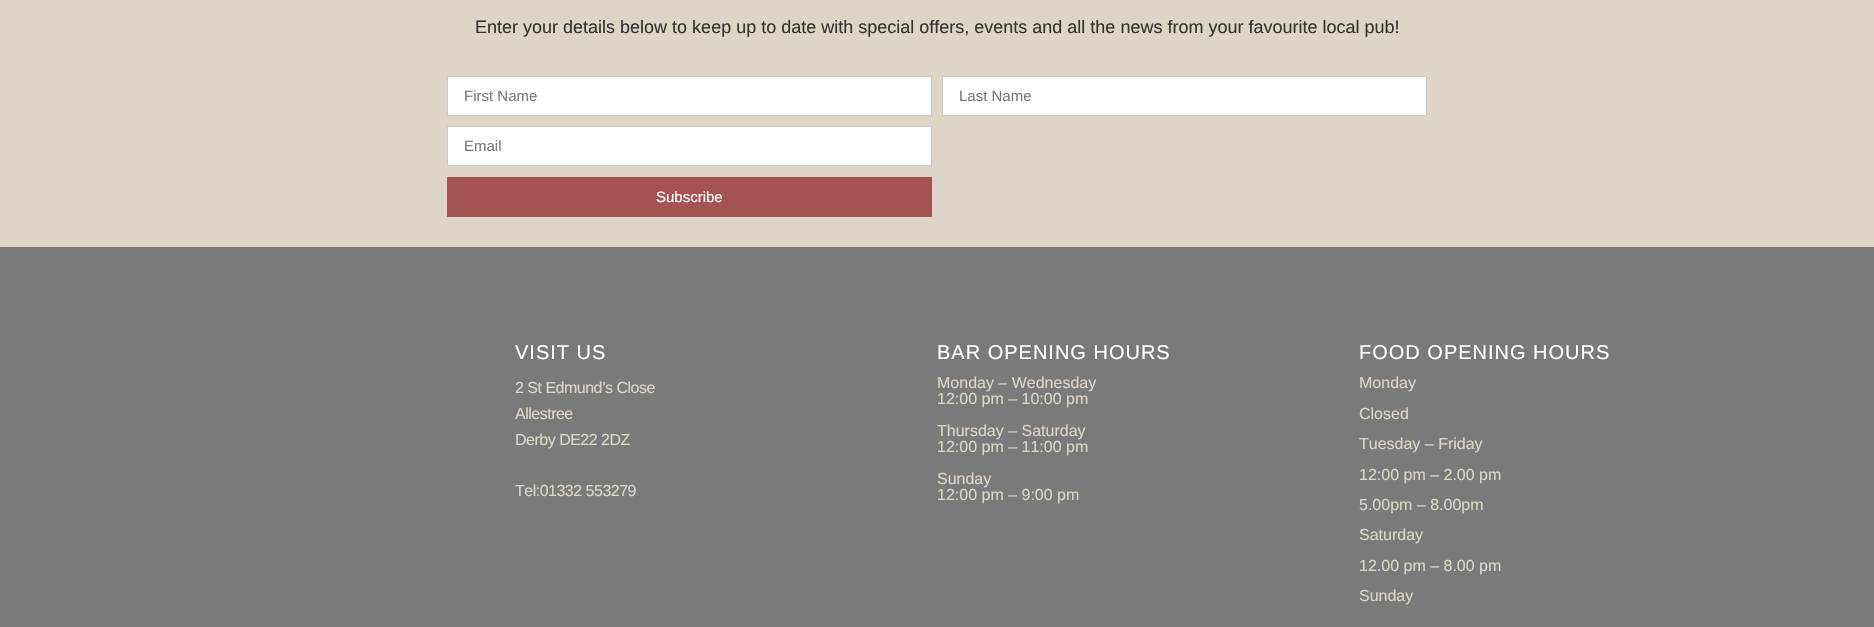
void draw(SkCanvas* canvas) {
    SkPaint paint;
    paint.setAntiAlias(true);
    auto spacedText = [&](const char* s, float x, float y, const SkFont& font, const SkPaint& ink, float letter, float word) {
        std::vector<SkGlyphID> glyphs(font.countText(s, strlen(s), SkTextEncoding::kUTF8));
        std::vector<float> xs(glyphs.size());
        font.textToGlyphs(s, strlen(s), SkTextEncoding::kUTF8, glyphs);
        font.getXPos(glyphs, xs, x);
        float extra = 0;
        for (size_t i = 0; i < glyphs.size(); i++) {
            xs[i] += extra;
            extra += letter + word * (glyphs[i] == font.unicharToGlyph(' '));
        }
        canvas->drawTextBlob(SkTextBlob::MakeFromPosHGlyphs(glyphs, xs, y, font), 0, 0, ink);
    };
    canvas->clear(0xFFDDD6C7);
    SkFont font1(fontMgr->matchFamilyStyle("Liberation Sans", SkFontStyle::Normal()), 18);
    font1.setSubpixel(true);
    paint.setColor(0xFF333333);
    canvas->drawString("Enter your details below to keep up to date with special offers, events and all the news from your favourite local pub!", 475, 33, font1, paint);
    paint.setColor(0xFFFFFFFF);
    canvas->drawRect(SkRect::MakeXYWH(447.5f, 76.5f, 484, 39), paint);
    paint.setStyle(SkPaint::kStroke_Style);
    paint.setStrokeWidth(1);
    paint.setColor(0xFFCBCBCB);
    canvas->drawRect(SkRect::MakeXYWH(447.5f, 76.5f, 484, 39), paint);
    SkFont font2(fontMgr->matchFamilyStyle("Liberation Sans", SkFontStyle::Normal()), 15);
    font2.setSubpixel(true);
    paint.setStyle(SkPaint::kFill_Style);
    paint.setColor(0xFF797A7C);
    canvas->drawString("First Name", 464, 101, font2, paint);
    paint.setColor(0xFFFFFFFF);
    canvas->drawRect(SkRect::MakeXYWH(942.5f, 76.5f, 484, 39), paint);
    paint.setStyle(SkPaint::kStroke_Style);
    paint.setColor(0xFFCBCBCB);
    canvas->drawRect(SkRect::MakeXYWH(942.5f, 76.5f, 484, 39), paint);
    paint.setStyle(SkPaint::kFill_Style);
    paint.setColor(0xFF797A7C);
    canvas->drawString("Last Name", 959, 101, font2, paint);
    paint.setColor(0xFFFFFFFF);
    canvas->drawRect(SkRect::MakeXYWH(447.5f, 126.5f, 484, 39), paint);
    paint.setStyle(SkPaint::kStroke_Style);
    paint.setColor(0xFFCBCBCB);
    canvas->drawRect(SkRect::MakeXYWH(447.5f, 126.5f, 484, 39), paint);
    paint.setStyle(SkPaint::kFill_Style);
    paint.setColor(0xFF797A7C);
    canvas->drawString("Email", 464, 151, font2, paint);
    paint.setColor(0xFFA45352);
    canvas->drawRect(SkRect::MakeXYWH(447, 177, 485, 40), paint);
    paint.setColor(0xFFFFFFFF);
    canvas->drawString("Subscribe", 656, 202, font2, paint);
    paint.setColor(0xFF7A7A7A);
    canvas->drawRect(SkRect::MakeXYWH(0, 247, 1874, 380), paint);
    SkFont font3(fontMgr->matchFamilyStyle("Liberation Sans", SkFontStyle::Normal()), 20);
    font3.setSubpixel(true);
    paint.setColor(0xFFFFFFFF);
    spacedText("VISIT US", 515, 359, font3, paint, 1, 0);
    SkFont font4(fontMgr->matchFamilyStyle("Liberation Sans", SkFontStyle::Normal()), 16);
    font4.setSubpixel(true);
    paint.setColor(0xFFDDD6C7);
    spacedText("2 St Edmund’s Close", 515, 393, font4, paint, -0.5f, 0);
    spacedText("Allestree", 515, 419, font4, paint, -0.5f, 0);
    spacedText("Derby DE22 2DZ", 515, 445, font4, paint, -0.5f, 0);
    spacedText("Tel:01332 553279", 515, 496, font4, paint, -0.5f, 0);
    paint.setColor(0xFFFFFFFF);
    spacedText("BAR OPENING HOURS", 937, 359, font3, paint, 1, 0);
    paint.setColor(0xFFDDD6C7);
    canvas->drawString("Monday – Wednesday", 937, 388, font4, paint);
    canvas->drawString("12:00 pm – 10:00 pm", 937, 404, font4, paint);
    canvas->drawString("Thursday – Saturday", 937, 436, font4, paint);
    canvas->drawString("12:00 pm – 11:00 pm", 937, 452, font4, paint);
    canvas->drawString("Sunday", 937, 484, font4, paint);
    canvas->drawString("12:00 pm – 9:00 pm", 937, 500, font4, paint);
    paint.setColor(0xFFFFFFFF);
    spacedText("FOOD OPENING HOURS", 1359, 359, font3, paint, 1, 0);
    paint.setColor(0xFFDDD6C7);
    canvas->drawString("Monday", 1359, 388, font4, paint);
    canvas->drawString("Closed", 1359, 419, font4, paint);
    canvas->drawString("Tuesday – Friday", 1359, 449, font4, paint);
    canvas->drawString("12:00 pm – 2.00 pm", 1359, 480, font4, paint);
    canvas->drawString("5.00pm – 8.00pm", 1359, 510, font4, paint);
    canvas->drawString("Saturday", 1359, 540, font4, paint);
    canvas->drawString("12.00 pm – 8.00 pm", 1359, 571, font4, paint);
    canvas->drawString("Sunday", 1359, 601, font4, paint);
}
